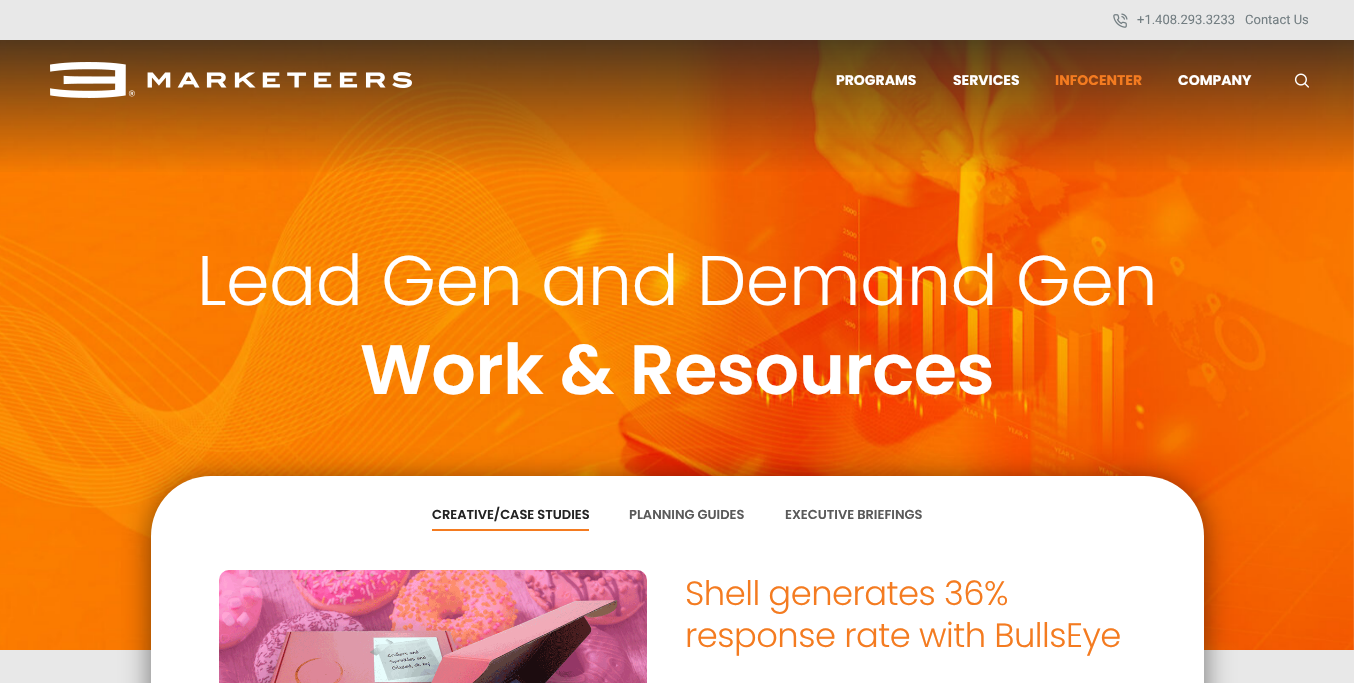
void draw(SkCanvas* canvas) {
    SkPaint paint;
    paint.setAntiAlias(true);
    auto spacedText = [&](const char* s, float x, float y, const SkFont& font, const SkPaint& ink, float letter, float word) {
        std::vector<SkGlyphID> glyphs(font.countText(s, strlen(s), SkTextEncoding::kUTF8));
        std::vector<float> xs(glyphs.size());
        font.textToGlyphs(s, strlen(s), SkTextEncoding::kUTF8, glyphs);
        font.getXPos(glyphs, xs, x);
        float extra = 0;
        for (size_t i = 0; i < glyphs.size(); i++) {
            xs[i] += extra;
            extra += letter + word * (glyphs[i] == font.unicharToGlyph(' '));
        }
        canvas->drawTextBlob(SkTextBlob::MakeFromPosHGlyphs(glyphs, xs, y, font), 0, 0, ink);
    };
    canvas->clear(0xFFE8E8E8);
    canvas->drawImageRect(SkImages::DeferredFromEncodedData(SkData::MakeFromFileName("img1.png")), SkRect::MakeXYWH(1113, 13, 15, 15), SkSamplingOptions());
    SkFont font1(fontMgr->matchFamilyStyle("Roboto", SkFontStyle::Normal()), 13);
    font1.setSubpixel(true);
    paint.setColor(0xFF737E82);
    canvas->drawString("+1.408.293.3233", 1137, 24, font1, paint);
    canvas->drawString("Contact Us", 1245, 24, font1, paint);
    canvas->drawImageRect(SkImages::DeferredFromEncodedData(SkData::MakeFromFileName("img4.png")), SkRect::MakeXYWH(0, 40, 1354, 610), SkSamplingOptions());
    {
        const SkColor colors[] = {0xFF232323, 0x00232323};
        const float stops[] = {0, 0.27f};
        const SkPoint ends[] = {{677, 0}, {677, 650}};
        paint.setShader(SkGradientShader::MakeLinear(ends, colors, stops, 2, SkTileMode::kClamp));
        paint.setAlpha(255);
    }
    canvas->drawRect(SkRect::MakeXYWH(0, 40, 1354, 132), paint);
    canvas->drawImageRect(SkImages::DeferredFromEncodedData(SkData::MakeFromFileName("img2.png")), SkRect::MakeXYWH(50, 62, 362, 36), SkSamplingOptions());
    SkFont font2(fontMgr->matchFamilyStyle("Poppins", SkFontStyle::Bold()), 14);
    font2.setSubpixel(true);
    paint.setShader(nullptr);
    paint.setColor(0xFFFFFFFF);
    canvas->drawString("PROGRAMS", 836, 85, font2, paint);
    canvas->drawString("SERVICES", 953, 85, font2, paint);
    paint.setColor(0xFFF47B20);
    canvas->drawString("INFOCENTER", 1055, 85, font2, paint);
    paint.setColor(0xFFFFFFFF);
    canvas->drawString("COMPANY", 1178, 85, font2, paint);
    canvas->drawImageRect(SkImages::DeferredFromEncodedData(SkData::MakeFromFileName("img3.png")), SkRect::MakeXYWH(1294, 73, 15, 15), SkSamplingOptions());
    SkFont font3(fontMgr->matchFamilyStyle("Poppins", SkFontStyle(300, SkFontStyle::kNormal_Width, SkFontStyle::kUpright_Slant)), 70);
    font3.setSubpixel(true);
    spacedText("Lead Gen and Demand Gen", 197, 305, font3, paint, -0.5f, 0);
    SkFont font4(fontMgr->matchFamilyStyle("Poppins", SkFontStyle(600, SkFontStyle::kNormal_Width, SkFontStyle::kUpright_Slant)), 70);
    font4.setSubpixel(true);
    spacedText("Work & Resources", 360, 394, font4, paint, -0.5f, 0);
    paint.setColor(0x80000000);
    paint.setMaskFilter(SkMaskFilter::MakeBlur(kNormal_SkBlurStyle, 14.5f));
    canvas->drawRoundRect(SkRect::MakeXYWH(151, 479, 1053, 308), 60, 60, paint);
    paint.setMaskFilter(nullptr);
    paint.setColor(0xFFFFFFFF);
    canvas->drawRoundRect(SkRect::MakeXYWH(151, 476, 1053, 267), 60, 60, paint);
    SkFont font5(fontMgr->matchFamilyStyle("Poppins", SkFontStyle(600, SkFontStyle::kNormal_Width, SkFontStyle::kUpright_Slant)), 13);
    font5.setSubpixel(true);
    paint.setColor(0xFF232323);
    canvas->drawString("CREATIVE/CASE STUDIES", 432, 519, font5, paint);
    paint.setColor(0xFFF47B20);
    canvas->drawRect(SkRect::MakeXYWH(432, 529, 157, 2), paint);
    paint.setColor(0xFF5A5A5A);
    canvas->drawString("PLANNING GUIDES", 629, 519, font5, paint);
    canvas->drawString("EXECUTIVE BRIEFINGS", 785, 519, font5, paint);
    canvas->drawImageRect(SkImages::DeferredFromEncodedData(SkData::MakeFromFileName("img5.png")), SkRect::MakeXYWH(219, 570, 428, 113), SkSamplingOptions());
    SkFont font6(fontMgr->matchFamilyStyle("Poppins", SkFontStyle(300, SkFontStyle::kNormal_Width, SkFontStyle::kUpright_Slant)), 33.75f);
    font6.setSubpixel(true);
    paint.setColor(0xFFF47B20);
    spacedText("Shell generates 36%", 685, 605, font6, paint, -0.5f, 0);
    spacedText("response rate with BullsEye", 685, 647, font6, paint, -0.5f, 0);
}
